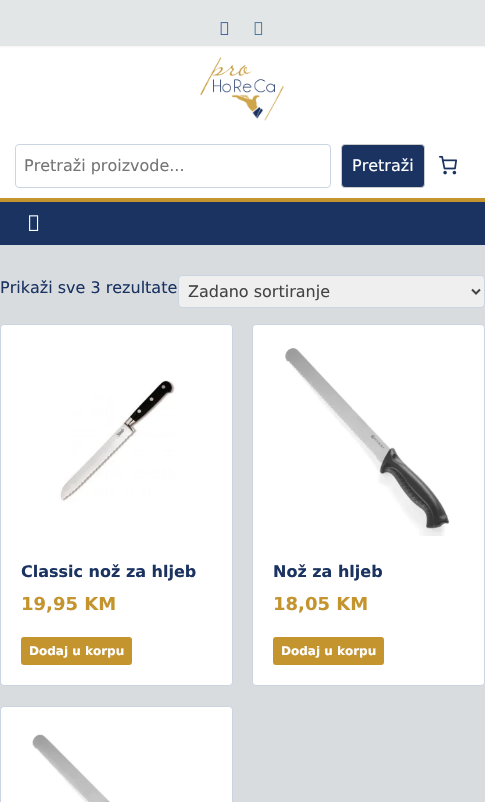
void draw(SkCanvas* canvas) {
    SkPaint paint;
    paint.setAntiAlias(true);
    canvas->clear(0xFFFFFFFF);
    paint.setColor(0x1A000000);
    paint.setMaskFilter(SkMaskFilter::MakeBlur(kNormal_SkBlurStyle, 1));
    canvas->drawRect(SkRect::MakeXYWH(0, 0, 485, 46), paint);
    paint.setMaskFilter(nullptr);
    paint.setColor(0xFFE3E6E6);
    canvas->drawRect(SkRect::MakeXYWH(0, 0, 485, 46), paint);
    canvas->drawImageRect(SkImages::DeferredFromEncodedData(SkData::MakeFromFileName("img1.png")), SkRect::MakeXYWH(220, 22, 9, 13), SkSamplingOptions());
    canvas->drawImageRect(SkImages::DeferredFromEncodedData(SkData::MakeFromFileName("img2.png")), SkRect::MakeXYWH(254, 22, 9, 13), SkSamplingOptions());
    canvas->drawImageRect(SkImages::DeferredFromEncodedData(SkData::MakeFromFileName("img3.png")), SkRect::MakeXYWH(200, 57, 84, 64), SkSamplingOptions());
    paint.setStyle(SkPaint::kStroke_Style);
    paint.setStrokeWidth(1);
    paint.setColor(0xFFCBD5E1);
    canvas->drawRoundRect(SkRect::MakeXYWH(15.5f, 144.5f, 315, 43), 3.5f, 3.5f, paint);
    SkFont font1(fontMgr->matchFamilyStyle("DejaVu Sans", SkFontStyle::Normal()), 16);
    font1.setSubpixel(true);
    paint.setStyle(SkPaint::kFill_Style);
    paint.setColor(0xFF757575);
    canvas->drawString("Pretraži proizvode...", 24, 171, font1, paint);
    paint.setColor(0xFF1B3361);
    canvas->drawRoundRect(SkRect::MakeXYWH(341.5f, 144.5f, 83, 43), 3.5f, 3.5f, paint);
    paint.setStyle(SkPaint::kStroke_Style);
    paint.setColor(0xFFCCCCCC);
    canvas->drawRoundRect(SkRect::MakeXYWH(341.5f, 144.5f, 83, 43), 3.5f, 3.5f, paint);
    paint.setStyle(SkPaint::kFill_Style);
    paint.setColor(0xFFFFFFFF);
    canvas->drawString("Pretraži", 352, 171, font1, paint);
    canvas->drawImageRect(SkImages::DeferredFromEncodedData(SkData::MakeFromFileName("img4.png")), SkRect::MakeXYWH(439, 155, 18, 20), SkSamplingOptions());
    paint.setColor(0xFF1B3361);
    canvas->drawRect(SkRect::MakeXYWH(0, 202, 485, 43), paint);
    paint.setColor(0xFFC4942F);
    canvas->drawRect(SkRect::MakeXYWH(0, 198, 485, 4), paint);
    canvas->drawImageRect(SkImages::DeferredFromEncodedData(SkData::MakeFromFileName("img5.png")), SkRect::MakeXYWH(29, 215, 10, 16), SkSamplingOptions());
    paint.setColor(0xFFD8DCDF);
    canvas->drawRect(SkRect::MakeXYWH(0, 245, 485, 557), paint);
    paint.setColor(0xFF1B3361);
    canvas->drawString("Prikaži sve 3 rezultate", 0, 293, font1, paint);
    paint.setColor(0xFFEFEFEF);
    canvas->drawRoundRect(SkRect::MakeXYWH(178.5f, 275.5f, 306, 32), 3.5f, 3.5f, paint);
    paint.setStyle(SkPaint::kStroke_Style);
    paint.setColor(0xFFCBD5E1);
    canvas->drawRoundRect(SkRect::MakeXYWH(178.5f, 275.5f, 306, 32), 3.5f, 3.5f, paint);
    paint.setStrokeWidth(2);
    paint.setColor(0xFF444444);
    canvas->drawPath(SkPathBuilder().moveTo(472, 289.5f).lineTo(476, 293.5f).lineTo(480, 289.5f).detach(), paint);
    paint.setStyle(SkPaint::kFill_Style);
    canvas->drawString("Zadano sortiranje", 188, 297, font1, paint);
    paint.setColor(0xFFFFFFFF);
    canvas->drawRoundRect(SkRect::MakeXYWH(0.5f, 324.5f, 232, 361), 3.5f, 3.5f, paint);
    paint.setStyle(SkPaint::kStroke_Style);
    paint.setStrokeWidth(1);
    paint.setColor(0xFFCBD5E1);
    canvas->drawRoundRect(SkRect::MakeXYWH(0.5f, 324.5f, 232, 361), 3.5f, 3.5f, paint);
    canvas->drawImageRect(SkImages::DeferredFromEncodedData(SkData::MakeFromFileName("img6.png")), SkRect::MakeXYWH(59, 380, 117, 122), SkSamplingOptions());
    SkFont font2(fontMgr->matchFamilyStyle("DejaVu Sans", SkFontStyle::Bold()), 16);
    font2.setSubpixel(true);
    paint.setStyle(SkPaint::kFill_Style);
    paint.setColor(0xFF1B3361);
    canvas->drawString("Classic nož za hljeb", 21, 577, font2, paint);
    SkFont font3(fontMgr->matchFamilyStyle("DejaVu Sans", SkFontStyle::Bold()), 18);
    font3.setSubpixel(true);
    paint.setColor(0xFFC4942F);
    canvas->drawString("19,95 KM", 21, 610, font3, paint);
    canvas->drawRoundRect(SkRect::MakeXYWH(21, 637, 111, 28), 3, 3, paint);
    SkFont font4(fontMgr->matchFamilyStyle("DejaVu Sans", SkFontStyle::Bold()), 12);
    font4.setSubpixel(true);
    paint.setColor(0xFFFFFFFF);
    canvas->drawString("Dodaj u korpu", 29, 655, font4, paint);
    canvas->drawRoundRect(SkRect::MakeXYWH(252.5f, 324.5f, 232, 361), 3.5f, 3.5f, paint);
    paint.setStyle(SkPaint::kStroke_Style);
    paint.setColor(0xFFCBD5E1);
    canvas->drawRoundRect(SkRect::MakeXYWH(252.5f, 324.5f, 232, 361), 3.5f, 3.5f, paint);
    canvas->drawImageRect(SkImages::DeferredFromEncodedData(SkData::MakeFromFileName("img7.png")), SkRect::MakeXYWH(285, 348, 165, 188), SkSamplingOptions());
    paint.setStyle(SkPaint::kFill_Style);
    paint.setColor(0xFF1B3361);
    canvas->drawString("Nož za hljeb", 273, 577, font2, paint);
    paint.setColor(0xFFC4942F);
    canvas->drawString("18,05 KM", 273, 610, font3, paint);
    canvas->drawRoundRect(SkRect::MakeXYWH(273, 637, 111, 28), 3, 3, paint);
    paint.setColor(0xFFFFFFFF);
    canvas->drawString("Dodaj u korpu", 281, 655, font4, paint);
    canvas->drawRoundRect(SkRect::MakeXYWH(0.5f, 706.5f, 232, 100), 3.5f, 3.5f, paint);
    paint.setStyle(SkPaint::kStroke_Style);
    paint.setColor(0xFFCBD5E1);
    canvas->drawRoundRect(SkRect::MakeXYWH(0.5f, 706.5f, 232, 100), 3.5f, 3.5f, paint);
    canvas->drawImageRect(SkImages::DeferredFromEncodedData(SkData::MakeFromFileName("img8.png")), SkRect::MakeXYWH(31, 734, 79, 68), SkSamplingOptions());
}
